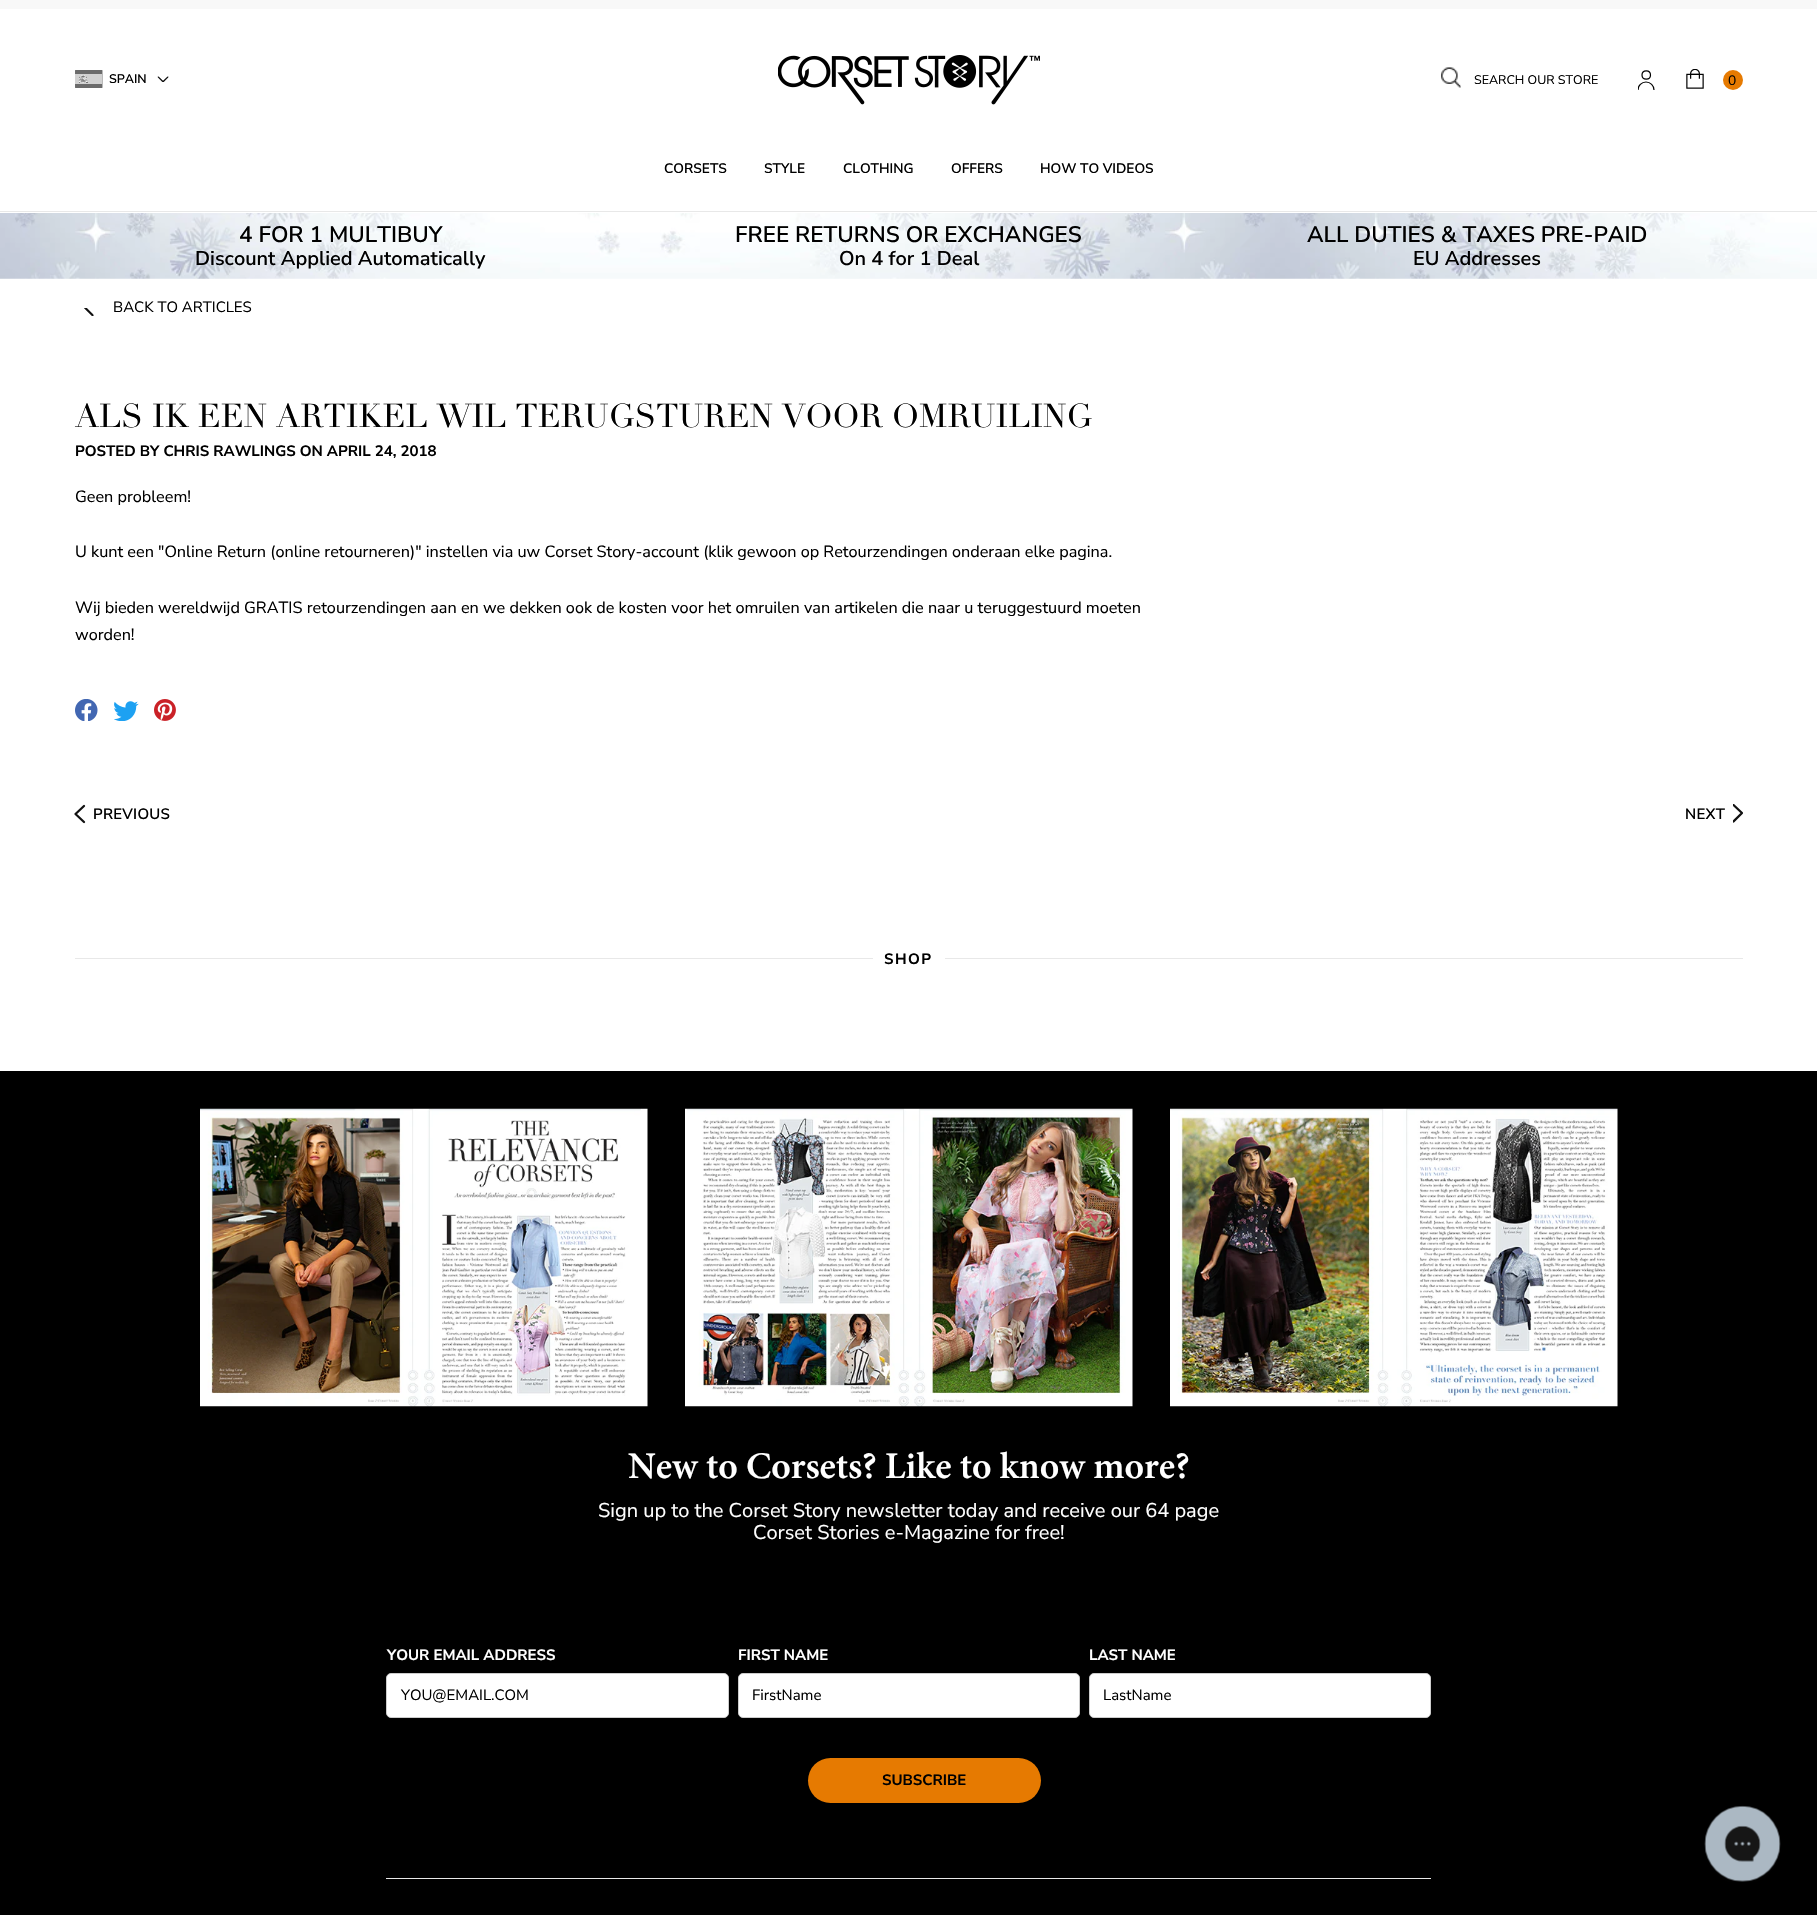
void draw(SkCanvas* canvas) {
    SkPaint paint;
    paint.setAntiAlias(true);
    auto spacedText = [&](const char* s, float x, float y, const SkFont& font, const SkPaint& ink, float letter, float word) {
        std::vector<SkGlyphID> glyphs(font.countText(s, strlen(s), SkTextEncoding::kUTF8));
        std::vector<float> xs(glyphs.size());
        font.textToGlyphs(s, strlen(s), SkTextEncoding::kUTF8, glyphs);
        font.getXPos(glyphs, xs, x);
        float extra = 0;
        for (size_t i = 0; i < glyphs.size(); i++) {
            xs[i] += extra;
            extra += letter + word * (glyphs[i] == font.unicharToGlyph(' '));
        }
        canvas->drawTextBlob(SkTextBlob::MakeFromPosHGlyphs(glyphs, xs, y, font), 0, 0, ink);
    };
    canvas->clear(0xFFFFFFFF);
    paint.setColor(0xFFF8F8F8);
    canvas->drawRect(SkRect::MakeXYWH(0, 0, 1817, 9), paint);
    canvas->drawImageRect(SkImages::DeferredFromEncodedData(SkData::MakeFromFileName("img1.png")), SkRect::MakeXYWH(75, 70, 28, 18), SkSamplingOptions());
    SkFont font1(fontMgr->matchFamilyStyle("Nunito Sans", SkFontStyle(600, SkFontStyle::kNormal_Width, SkFontStyle::kUpright_Slant)), 12.5f);
    font1.setSubpixel(true);
    paint.setColor(0xFF000000);
    canvas->drawString("SPAIN", 109, 83, font1, paint);
    canvas->drawImageRect(SkImages::DeferredFromEncodedData(SkData::MakeFromFileName("img2.png")), SkRect::MakeXYWH(157, 76, 12, 6), SkSamplingOptions());
    canvas->drawImageRect(SkImages::DeferredFromEncodedData(SkData::MakeFromFileName("img3.png")), SkRect::MakeXYWH(778, 55, 262, 50), SkSamplingOptions());
    canvas->drawImageRect(SkImages::DeferredFromEncodedData(SkData::MakeFromFileName("img4.png")), SkRect::MakeXYWH(1441, 67, 20, 21), SkSamplingOptions());
    SkFont font2(fontMgr->matchFamilyStyle("Nunito Sans", SkFontStyle::Normal()), 12.5f);
    font2.setSubpixel(true);
    canvas->drawString("SEARCH OUR STORE", 1474, 84, font2, paint);
    canvas->save();
    canvas->clipRect(SkRect::MakeXYWH(1638, 70, 17, 20));
    paint.setStyle(SkPaint::kStroke_Style);
    paint.setStrokeWidth(1.2f);
    canvas->drawCircle(1646, 90, 8, paint);
    canvas->restore();
    canvas->drawPath(SkPathBuilder().moveTo(1650.5f, 75).cubicTo(1650.5f, 80.5f, 1642, 80.5f, 1642, 75).cubicTo(1642, 69.5f, 1650.5f, 69.5f, 1650.5f, 75).close().detach(), paint);
    canvas->drawImageRect(SkImages::DeferredFromEncodedData(SkData::MakeFromFileName("img5.png")), SkRect::MakeXYWH(1686, 69, 18, 20), SkSamplingOptions());
    paint.setStyle(SkPaint::kFill_Style);
    paint.setColor(0xFFE67A01);
    canvas->drawCircle(1733, 80, 10, paint);
    SkFont font3(fontMgr->matchFamilyStyle("Nunito Sans", SkFontStyle::Normal()), 13.75f);
    font3.setSubpixel(true);
    paint.setColor(0xFF000000);
    canvas->drawString("0", 1728, 85, font3, paint);
    paint.setColor(0xFFE8E8E8);
    canvas->drawRect(SkRect::MakeXYWH(0, 211, 1817, 1), paint);
    SkFont font4(fontMgr->matchFamilyStyle("Nunito Sans", SkFontStyle(600, SkFontStyle::kNormal_Width, SkFontStyle::kUpright_Slant)), 13.75f);
    font4.setSubpixel(true);
    paint.setColor(0xFF000000);
    canvas->drawString("CORSETS", 664, 173, font4, paint);
    canvas->drawString("STYLE", 764, 173, font4, paint);
    canvas->drawString("CLOTHING", 843, 173, font4, paint);
    canvas->drawString("OFFERS", 951, 173, font4, paint);
    canvas->drawString("HOW TO VIDEOS", 1040, 173, font4, paint);
    canvas->drawImageRect(SkImages::DeferredFromEncodedData(SkData::MakeFromFileName("img6.png")), SkRect::MakeXYWH(0, 213, 1817, 66), SkSamplingOptions());
    SkFont font5(fontMgr->matchFamilyStyle("Nunito Sans", SkFontStyle(600, SkFontStyle::kNormal_Width, SkFontStyle::kUpright_Slant)), 22.5f);
    font5.setSubpixel(true);
    canvas->drawString("4 FOR 1 MULTIBUY", 239, 242, font5, paint);
    SkFont font6(fontMgr->matchFamilyStyle("Nunito Sans", SkFontStyle(600, SkFontStyle::kNormal_Width, SkFontStyle::kUpright_Slant)), 20);
    font6.setSubpixel(true);
    canvas->drawString("Discount Applied Automatically", 195, 265, font6, paint);
    canvas->drawString("FREE RETURNS OR EXCHANGES", 735, 242, font5, paint);
    canvas->drawString("On 4 for 1 Deal", 839, 265, font6, paint);
    canvas->drawString("ALL DUTIES & TAXES PRE-PAID", 1307, 242, font5, paint);
    canvas->drawString("EU Addresses", 1413, 265, font6, paint);
    canvas->drawImageRect(SkImages::DeferredFromEncodedData(SkData::MakeFromFileName("img7.png")), SkRect::MakeXYWH(84, 308, 10, 8), SkSamplingOptions());
    SkFont font7(fontMgr->matchFamilyStyle("Nunito Sans", SkFontStyle::Normal()), 15);
    font7.setSubpixel(true);
    canvas->drawString("BACK TO ARTICLES", 113, 312, font7, paint);
    SkFont font8(fontMgr->matchFamilyStyle("Didot", SkFontStyle::Normal()), 32.5f);
    font8.setSubpixel(true);
    canvas->drawString("ALS IK EEN ARTIKEL WIL TERUGSTUREN VOOR OMRUILING", 75, 427, font8, paint);
    SkFont font9(fontMgr->matchFamilyStyle("Nunito Sans", SkFontStyle::Bold()), 15);
    font9.setSubpixel(true);
    canvas->drawString("POSTED BY CHRIS RAWLINGS ON APRIL 24, 2018", 75, 456, font9, paint);
    SkFont font10(fontMgr->matchFamilyStyle("Nunito Sans", SkFontStyle::Normal()), 16.25f);
    font10.setSubpixel(true);
    canvas->drawString("Geen probleem!", 75, 502, font10, paint);
    canvas->drawString("U kunt een \"Online Return (online retourneren)\" instellen via uw Corset Story-account (klik gewoon op Retourzendingen onderaan elke pagina.", 75, 557, font10, paint);
    canvas->drawString("Wij bieden wereldwijd GRATIS retourzendingen aan en we dekken ook de kosten voor het omruilen van artikelen die naar u teruggestuurd moeten", 75, 613, font10, paint);
    canvas->drawString("worden!", 75, 640, font10, paint);
    canvas->drawImageRect(SkImages::DeferredFromEncodedData(SkData::MakeFromFileName("img8.png")), SkRect::MakeXYWH(75, 699, 23, 22), SkSamplingOptions());
    canvas->drawImageRect(SkImages::DeferredFromEncodedData(SkData::MakeFromFileName("img9.png")), SkRect::MakeXYWH(114, 701, 25, 20), SkSamplingOptions());
    canvas->drawImageRect(SkImages::DeferredFromEncodedData(SkData::MakeFromFileName("img10.png")), SkRect::MakeXYWH(154, 699, 22, 22), SkSamplingOptions());
    paint.setStyle(SkPaint::kStroke_Style);
    paint.setStrokeWidth(2.3f);
    paint.setStrokeCap(SkPaint::kRound_Cap);
    paint.setStrokeJoin(SkPaint::kRound_Join);
    paint.setColor(0xFF111111);
    canvas->drawPath(SkPathBuilder().moveTo(84, 822).lineTo(75.5f, 814).lineTo(84, 806).detach(), paint);
    SkFont font11(fontMgr->matchFamilyStyle("Nunito Sans", SkFontStyle(600, SkFontStyle::kNormal_Width, SkFontStyle::kUpright_Slant)), 15);
    font11.setSubpixel(true);
    paint.setStyle(SkPaint::kFill_Style);
    paint.setColor(0xFF000000);
    spacedText("PREVIOUS", 93, 819, font11, paint, 0.25f, 0);
    spacedText("NEXT", 1685, 819, font11, paint, 0.25f, 0);
    canvas->save();
    canvas->clipRect(SkRect::MakeXYWH(1733, 804, 10, 19));
    paint.setStyle(SkPaint::kStroke_Style);
    paint.setColor(0xFF111111);
    canvas->drawPath(SkPathBuilder().moveTo(1733.5f, 805).lineTo(1742, 813).lineTo(1733.5f, 821.5f).detach(), paint);
    canvas->restore();
    paint.setStyle(SkPaint::kFill_Style);
    paint.setColor(0xFFE8E8E8);
    canvas->drawRect(SkRect::MakeXYWH(75, 958, 1668, 1), paint);
    paint.setColor(0xFFFFFFFF);
    canvas->drawRect(SkRect::MakeXYWH(873, 958, 72, 1), paint);
    paint.setColor(0xFF000000);
    spacedText("SHOP", 884, 964, font9, paint, 1.5f, 0);
    canvas->drawRect(SkRect::MakeXYWH(0, 1071, 1817, 844), paint);
    canvas->drawImageRect(SkImages::DeferredFromEncodedData(SkData::MakeFromFileName("img11.png")), SkRect::MakeXYWH(200, 1108, 448, 299), SkSamplingOptions());
    canvas->drawImageRect(SkImages::DeferredFromEncodedData(SkData::MakeFromFileName("img12.png")), SkRect::MakeXYWH(685, 1108, 448, 299), SkSamplingOptions());
    canvas->drawImageRect(SkImages::DeferredFromEncodedData(SkData::MakeFromFileName("img13.png")), SkRect::MakeXYWH(1170, 1108, 448, 299), SkSamplingOptions());
    SkFont font12(fontMgr->matchFamilyStyle("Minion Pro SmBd", SkFontStyle(600, SkFontStyle::kNormal_Width, SkFontStyle::kUpright_Slant)), 37.5f);
    font12.setSubpixel(true);
    paint.setColor(0xFFFFFFFF);
    canvas->drawString("New to Corsets? Like to know more?", 628, 1478, font12, paint);
    SkFont font13(fontMgr->matchFamilyStyle("Nunito Sans", SkFontStyle::Normal()), 20);
    font13.setSubpixel(true);
    canvas->drawString("Sign up to the Corset Story newsletter today and receive our 64 page", 598, 1517, font13, paint);
    canvas->drawString("Corset Stories e-Magazine for free!", 753, 1539, font13, paint);
    paint.setColor(0xFFE8E8E8);
    canvas->drawRect(SkRect::MakeXYWH(386, 1878, 1045, 1), paint);
    paint.setColor(0xFFFFFFFF);
    canvas->drawString("YOUR EMAIL ADDRESS", 387, 1660, font9, paint);
    canvas->drawRoundRect(SkRect::MakeXYWH(386.5f, 1673.5f, 342, 44), 4.5f, 4.5f, paint);
    paint.setStyle(SkPaint::kStroke_Style);
    paint.setStrokeWidth(1);
    paint.setStrokeCap(SkPaint::kButt_Cap);
    paint.setStrokeJoin(SkPaint::kMiter_Join);
    paint.setColor(0xFFCCCCCC);
    canvas->drawRoundRect(SkRect::MakeXYWH(386.5f, 1673.5f, 342, 44), 4.5f, 4.5f, paint);
    paint.setStyle(SkPaint::kFill_Style);
    paint.setColor(0xFF000000);
    canvas->drawString("YOU@EMAIL.COM", 401, 1700, font7, paint);
    paint.setColor(0xFFFFFFFF);
    canvas->drawString("FIRST NAME", 738, 1660, font9, paint);
    canvas->drawRoundRect(SkRect::MakeXYWH(738.5f, 1673.5f, 341, 44), 4.5f, 4.5f, paint);
    paint.setStyle(SkPaint::kStroke_Style);
    paint.setColor(0xFFCCCCCC);
    canvas->drawRoundRect(SkRect::MakeXYWH(738.5f, 1673.5f, 341, 44), 4.5f, 4.5f, paint);
    paint.setStyle(SkPaint::kFill_Style);
    paint.setColor(0xFF000000);
    canvas->drawString("FirstName", 752, 1700, font7, paint);
    paint.setColor(0xFFFFFFFF);
    canvas->drawString("LAST NAME", 1089, 1660, font9, paint);
    canvas->drawRoundRect(SkRect::MakeXYWH(1089.5f, 1673.5f, 341, 44), 4.5f, 4.5f, paint);
    paint.setStyle(SkPaint::kStroke_Style);
    paint.setColor(0xFFCCCCCC);
    canvas->drawRoundRect(SkRect::MakeXYWH(1089.5f, 1673.5f, 341, 44), 4.5f, 4.5f, paint);
    paint.setStyle(SkPaint::kFill_Style);
    paint.setColor(0xFF000000);
    canvas->drawString("LastName", 1103, 1700, font7, paint);
    paint.setColor(0xFFE67A01);
    canvas->drawRoundRect(SkRect::MakeXYWH(808, 1758, 233, 45), 22.5f, 22.5f, paint);
    paint.setColor(0xFF000000);
    canvas->drawString("SUBSCRIBE", 882, 1785, font9, paint);
    canvas->drawImageRect(SkImages::DeferredFromEncodedData(SkData::MakeFromFileName("img14.png")), SkRect::MakeXYWH(1704, 1805, 77, 77), SkSamplingOptions());
}
